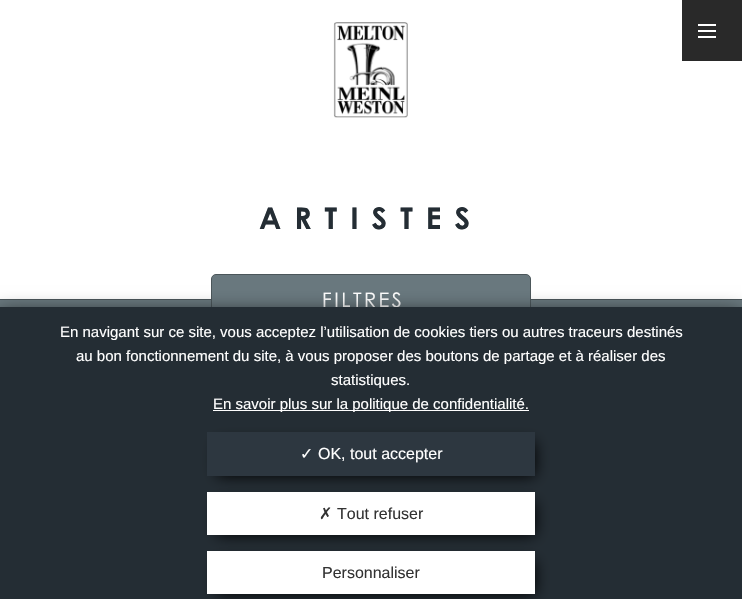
void draw(SkCanvas* canvas) {
    SkPaint paint;
    paint.setAntiAlias(true);
    auto spacedText = [&](const char* s, float x, float y, const SkFont& font, const SkPaint& ink, float letter, float word) {
        std::vector<SkGlyphID> glyphs(font.countText(s, strlen(s), SkTextEncoding::kUTF8));
        std::vector<float> xs(glyphs.size());
        font.textToGlyphs(s, strlen(s), SkTextEncoding::kUTF8, glyphs);
        font.getXPos(glyphs, xs, x);
        float extra = 0;
        for (size_t i = 0; i < glyphs.size(); i++) {
            xs[i] += extra;
            extra += letter + word * (glyphs[i] == font.unicharToGlyph(' '));
        }
        canvas->drawTextBlob(SkTextBlob::MakeFromPosHGlyphs(glyphs, xs, y, font), 0, 0, ink);
    };
    canvas->clear(0xFFFFFFFF);
    canvas->drawImageRect(SkImages::DeferredFromEncodedData(SkData::MakeFromFileName("img1.png")), SkRect::MakeXYWH(333, 22, 75, 96), SkSamplingOptions());
    paint.setColor(0xFF292929);
    canvas->drawRect(SkRect::MakeXYWH(682, 0, 60, 61), paint);
    paint.setColor(0xFFFFFFFF);
    canvas->drawRect(SkRect::MakeXYWH(698, 24, 18, 2), paint);
    canvas->drawRect(SkRect::MakeXYWH(698, 36, 18, 2), paint);
    canvas->drawRect(SkRect::MakeXYWH(698, 30, 18, 2), paint);
    SkFont font1(fontMgr->matchFamilyStyle("Century Gothic", SkFontStyle::Bold()), 30);
    font1.setSubpixel(true);
    paint.setColor(0xFF242D34);
    spacedText("ARTISTES", 259, 229, font1, paint, 13, 0);
    paint.setColor(0xFF4B565A);
    canvas->drawRect(SkRect::MakeXYWH(0, 299, 742, 1), paint);
    paint.setColor(0xFF69787E);
    canvas->drawRect(SkRect::MakeXYWH(0, 300, 742, 7), paint);
    canvas->drawRoundRect(SkRect::MakeXYWH(211.5f, 274.5f, 319, 49), 4.5f, 4.5f, paint);
    paint.setStyle(SkPaint::kStroke_Style);
    paint.setStrokeWidth(1);
    paint.setColor(0xFF4B565A);
    canvas->drawRoundRect(SkRect::MakeXYWH(211.5f, 274.5f, 319, 49), 4.5f, 4.5f, paint);
    SkFont font2(fontMgr->matchFamilyStyle("Century Gothic", SkFontStyle::Normal()), 20);
    font2.setSubpixel(true);
    paint.setStyle(SkPaint::kFill_Style);
    paint.setColor(0xFFFFFFFF);
    spacedText("FILTRES", 322, 307, font2, paint, 2.5f, 0);
    paint.setColor(0xFF000000);
    paint.setMaskFilter(SkMaskFilter::MakeBlur(kNormal_SkBlurStyle, 10));
    canvas->drawRect(SkRect::MakeXYWH(-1, 315, 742, 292), paint);
    paint.setMaskFilter(nullptr);
    paint.setColor(0xFF242D34);
    canvas->drawRect(SkRect::MakeXYWH(0, 307, 742, 292), paint);
    SkFont font3(fontMgr->matchFamilyStyle("Liberation Sans", SkFontStyle::Normal()), 15);
    font3.setSubpixel(true);
    paint.setColor(0xFFFFFFFF);
    canvas->drawString("En navigant sur ce site, vous acceptez l’utilisation de cookies tiers ou autres traceurs destinés", 60, 337, font3, paint);
    canvas->drawString("au bon fonctionnement du site, à vous proposer des boutons de partage et à réaliser des", 76, 361, font3, paint);
    canvas->drawString("statistiques.", 331, 385, font3, paint);
    canvas->drawRect(SkRect::MakeXYWH(213, 410, 316, 1), paint);
    canvas->drawString("En savoir plus sur la politique de confidentialité.", 213, 409, font3, paint);
    paint.setColor(0xFF000000);
    paint.setMaskFilter(SkMaskFilter::MakeBlur(kNormal_SkBlurStyle, 7.5f));
    canvas->drawRect(SkRect::MakeXYWH(217, 442, 318, 34), paint);
    paint.setMaskFilter(nullptr);
    paint.setColor(0xFF2D3740);
    canvas->drawRect(SkRect::MakeXYWH(207, 432, 328, 44), paint);
    SkFont font4(fontMgr->matchFamilyStyle("DejaVu Sans", SkFontStyle::Normal()), 16);
    font4.setSubpixel(true);
    paint.setColor(0xFFFFFFFF);
    canvas->drawString("✓", 300, 459, font4, paint);
    SkFont font5(fontMgr->matchFamilyStyle("Liberation Sans", SkFontStyle::Normal()), 16);
    font5.setSubpixel(true);
    canvas->drawString("OK, tout accepter", 318, 459, font5, paint);
    paint.setColor(0xFF000000);
    paint.setMaskFilter(SkMaskFilter::MakeBlur(kNormal_SkBlurStyle, 7.5f));
    canvas->drawRect(SkRect::MakeXYWH(217, 502, 318, 33), paint);
    paint.setMaskFilter(nullptr);
    paint.setColor(0xFFFFFFFF);
    canvas->drawRect(SkRect::MakeXYWH(207, 492, 328, 43), paint);
    paint.setColor(0xFF333333);
    canvas->drawString("✗", 319, 519, font4, paint);
    canvas->drawString("Tout refuser", 337, 519, font5, paint);
    paint.setColor(0xFF000000);
    paint.setMaskFilter(SkMaskFilter::MakeBlur(kNormal_SkBlurStyle, 7.5f));
    canvas->drawRect(SkRect::MakeXYWH(217, 561, 318, 33), paint);
    paint.setMaskFilter(nullptr);
    paint.setColor(0xFFFFFFFF);
    canvas->drawRect(SkRect::MakeXYWH(207, 551, 328, 43), paint);
    paint.setColor(0xFF333333);
    canvas->drawString("Personnaliser", 322, 578, font5, paint);
}
